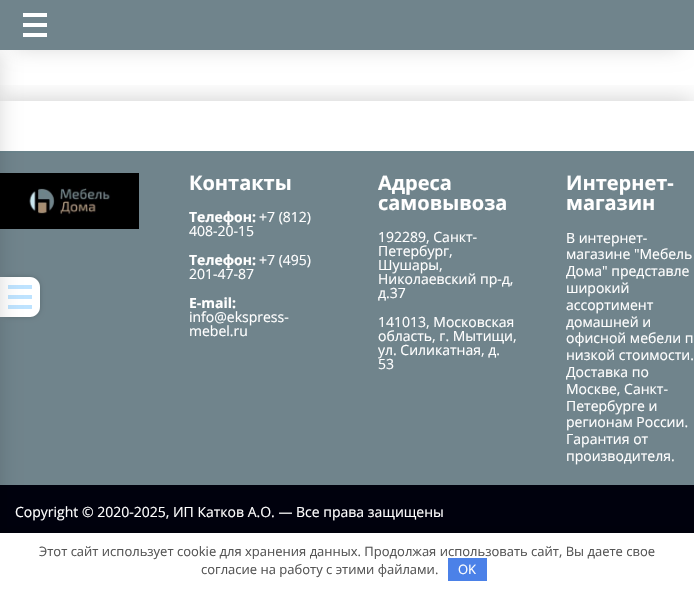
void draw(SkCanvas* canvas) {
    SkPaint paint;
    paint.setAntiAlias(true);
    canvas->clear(0xFFFFFFFF);
    canvas->save();
    canvas->clipRect(SkRect::MakeXYWH(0, 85, 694, 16));
    paint.setColor(0x33000000);
    paint.setMaskFilter(SkMaskFilter::MakeBlur(kNormal_SkBlurStyle, 12.5f));
    canvas->drawRect(SkRect::MakeXYWH(0, 101, 694, 50), paint);
    paint.setMaskFilter(nullptr);
    canvas->restore();
    paint.setColor(0x26000000);
    paint.setMaskFilter(SkMaskFilter::MakeBlur(kNormal_SkBlurStyle, 10));
    canvas->drawRoundRect(SkRect::MakeXYWH(15, -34, 664, 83), 4, 4, paint);
    paint.setMaskFilter(nullptr);
    paint.setColor(0xFF70848C);
    canvas->drawRect(SkRect::MakeXYWH(0, 153, 694, 332), paint);
    paint.setColor(0x33000000);
    paint.setMaskFilter(SkMaskFilter::MakeBlur(kNormal_SkBlurStyle, 2.5f));
    canvas->drawRoundRect(SkRect::MakeXYWH(0, 277, 40, 40), 10, 10, paint);
    paint.setMaskFilter(nullptr);
    paint.setColor(0xFFFFFFFF);
    canvas->drawPath(SkPathBuilder().moveTo(0, 277).lineTo(30, 277).cubicTo(35.5f, 277, 40, 281.5f, 40, 287).lineTo(40, 307).cubicTo(40, 312.5f, 35.5f, 317, 30, 317).lineTo(0, 317).close().detach(), paint);
    paint.setColor(0xFFBEE3FF);
    canvas->drawRect(SkRect::MakeXYWH(8, 285, 24, 4), paint);
    canvas->drawRect(SkRect::MakeXYWH(8, 295, 24, 4), paint);
    canvas->drawRect(SkRect::MakeXYWH(8, 305, 24, 4), paint);
    paint.setColor(0xFF6B848C);
    canvas->drawRect(SkRect::MakeXYWH(0, 151, 694, 2), paint);
    canvas->drawImageRect(SkImages::DeferredFromEncodedData(SkData::MakeFromFileName("img1.png")), SkRect::MakeXYWH(0, 173, 139, 56), SkSamplingOptions());
    paint.setColor(0xFF00010D);
    canvas->drawRect(SkRect::MakeXYWH(0, 485, 694, 48), paint);
    paint.setColor(0x26000000);
    paint.setMaskFilter(SkMaskFilter::MakeBlur(kNormal_SkBlurStyle, 10));
    canvas->drawRect(SkRect::MakeXYWH(-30, 50, 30, 543), paint);
    paint.setMaskFilter(nullptr);
    paint.setColor(0xFF70848C);
    canvas->drawRect(SkRect::MakeXYWH(0, 0, 694, 50), paint);
    paint.setColor(0xFFFFFFFF);
    canvas->drawRect(SkRect::MakeXYWH(23, 13, 24, 4), paint);
    canvas->drawRect(SkRect::MakeXYWH(23, 23, 24, 4), paint);
    canvas->drawRect(SkRect::MakeXYWH(23, 33, 24, 4), paint);
    SkFont font1(fontMgr->matchFamilyStyle("Open Sans", SkFontStyle::Bold()), 20);
    font1.setSubpixel(true);
    canvas->drawString("Контакты", 189, 190, font1, paint);
    SkFont font2(fontMgr->matchFamilyStyle("Open Sans", SkFontStyle::Bold()), 14);
    font2.setSubpixel(true);
    canvas->drawString("Телефон:", 189, 222, font2, paint);
    SkFont font3(fontMgr->matchFamilyStyle("Open Sans", SkFontStyle::Normal()), 14);
    font3.setSubpixel(true);
    canvas->drawString("+7 (812)", 259, 222, font3, paint);
    canvas->drawString("408-20-15", 189, 236, font3, paint);
    canvas->drawString("Телефон:", 189, 265, font2, paint);
    canvas->drawString("+7 (495)", 259, 265, font3, paint);
    canvas->drawString("201-47-87", 189, 279, font3, paint);
    canvas->drawString("E-mail:", 189, 308, font2, paint);
    canvas->drawString("info@ekspress-", 189, 322, font3, paint);
    canvas->drawString("mebel.ru", 189, 336, font3, paint);
    canvas->drawString("Адреса", 378, 190, font1, paint);
    canvas->drawString("самовывоза", 378, 210, font1, paint);
    canvas->drawString("192289, Санкт-", 378, 242, font3, paint);
    canvas->drawString("Петербург,", 378, 256, font3, paint);
    canvas->drawString("Шушары,", 378, 270, font3, paint);
    canvas->drawString("Николаевский пр-д,", 378, 284, font3, paint);
    canvas->drawString("д.37", 378, 298, font3, paint);
    canvas->drawString("141013, Московская", 378, 327, font3, paint);
    canvas->drawString("область, г. Мытищи,", 378, 341, font3, paint);
    canvas->drawString("ул. Силикатная, д.", 378, 355, font3, paint);
    canvas->drawString("53", 378, 369, font3, paint);
    canvas->drawString("Интернет-", 566, 190, font1, paint);
    canvas->drawString("магазин", 566, 210, font1, paint);
    canvas->drawString("В интернет-", 566, 243, font3, paint);
    canvas->drawString("магазине \"Мебель", 566, 259, font3, paint);
    canvas->drawString("Дома\" представле", 566, 276, font3, paint);
    canvas->drawString("широкий", 566, 293, font3, paint);
    canvas->drawString("ассортимент", 566, 310, font3, paint);
    canvas->drawString("домашней и", 566, 327, font3, paint);
    canvas->drawString("офисной мебели п", 566, 343, font3, paint);
    canvas->drawString("низкой стоимости.", 566, 360, font3, paint);
    canvas->drawString("Доставка по", 566, 377, font3, paint);
    canvas->drawString("Москве, Санкт-", 566, 394, font3, paint);
    canvas->drawString("Петербурге и", 566, 411, font3, paint);
    canvas->drawString("регионам России.", 566, 427, font3, paint);
    canvas->drawString("Гарантия от", 566, 444, font3, paint);
    canvas->drawString("производителя.", 566, 461, font3, paint);
    canvas->drawString("Copyright © 2020-2025, ИП Катков А.О. — Все права защищены", 15, 517, font3, paint);
    paint.setColor(0x33000000);
    paint.setMaskFilter(SkMaskFilter::MakeBlur(kNormal_SkBlurStyle, 7.5f));
    canvas->drawRect(SkRect::MakeXYWH(0, 533, 694, 60), paint);
    paint.setMaskFilter(nullptr);
    paint.setColor(0xFFFFFFFF);
    canvas->drawRect(SkRect::MakeXYWH(0, 533, 694, 60), paint);
    SkFont font4(fontMgr->matchFamilyStyle("Open Sans", SkFontStyle::Normal()), 13);
    font4.setSubpixel(true);
    paint.setColor(0xFF555555);
    canvas->drawString("Этот сайт использует cookie для хранения данных. Продолжая использовать сайт, Вы даете свое", 39, 556, font4, paint);
    canvas->drawString("согласие на работу с этими файлами.", 201, 574, font4, paint);
    paint.setColor(0xFF4B81E8);
    canvas->drawRect(SkRect::MakeXYWH(448, 558, 39, 23), paint);
    paint.setColor(0xFFFFFFFF);
    canvas->drawString("OK", 458, 574, font4, paint);
}
